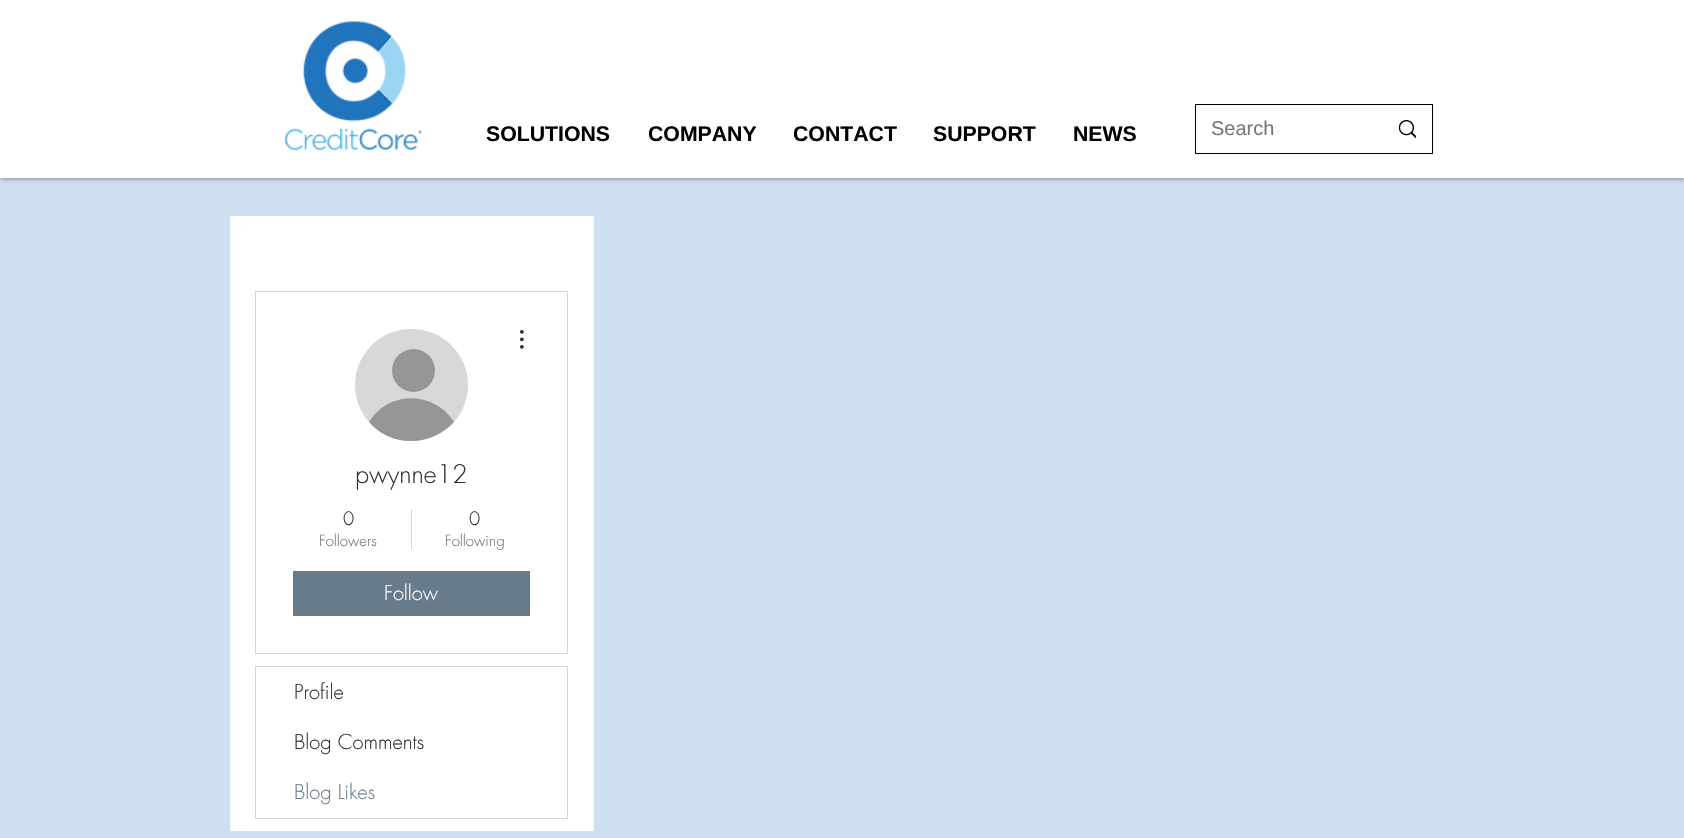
void draw(SkCanvas* canvas) {
    SkPaint paint;
    paint.setAntiAlias(true);
    canvas->clear(0xFFCFDFF2);
    paint.setColor(0x80000000);
    paint.setMaskFilter(SkMaskFilter::MakeBlur(kNormal_SkBlurStyle, 3));
    canvas->drawRect(SkRect::MakeXYWH(0, 0, 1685, 178), paint);
    paint.setMaskFilter(nullptr);
    paint.setColor(0xFFFFFFFF);
    canvas->drawRect(SkRect::MakeXYWH(0, 0, 1684, 178), paint);
    canvas->drawImageRect(SkImages::DeferredFromEncodedData(SkData::MakeFromFileName("img1.png")), SkRect::MakeXYWH(284, 21, 139, 130), SkSamplingOptions());
    SkFont font1(fontMgr->matchFamilyStyle("Liberation Sans", SkFontStyle::Bold()), 21.25f);
    font1.setSubpixel(true);
    paint.setColor(0xFF000000);
    canvas->drawString("SOLUTIONS", 486, 141, font1, paint);
    canvas->drawString("COMPANY", 648, 141, font1, paint);
    canvas->drawString("CONTACT", 793, 141, font1, paint);
    canvas->drawString("SUPPORT", 933, 141, font1, paint);
    canvas->drawString("NEWS", 1073, 141, font1, paint);
    paint.setStyle(SkPaint::kStroke_Style);
    paint.setStrokeWidth(1);
    canvas->drawRect(SkRect::MakeXYWH(1195.5f, 104.5f, 237, 49), paint);
    SkFont font2(fontMgr->matchFamilyStyle("Liberation Sans", SkFontStyle::Normal()), 20);
    font2.setSubpixel(true);
    paint.setStyle(SkPaint::kFill_Style);
    paint.setColor(0xFF787878);
    canvas->drawString("Search", 1211, 135, font2, paint);
    canvas->drawImageRect(SkImages::DeferredFromEncodedData(SkData::MakeFromFileName("img2.png")), SkRect::MakeXYWH(1399, 120, 17, 18), SkSamplingOptions());
    paint.setColor(0xFFFFFFFF);
    canvas->drawRect(SkRect::MakeXYWH(230, 216, 364, 615), paint);
    paint.setStyle(SkPaint::kStroke_Style);
    paint.setColor(0xFFD5D5D5);
    canvas->drawRect(SkRect::MakeXYWH(255.5f, 291.5f, 312, 362), paint);
    paint.setStyle(SkPaint::kFill_Style);
    paint.setColor(0xFFD8D8D8);
    canvas->drawRoundRect(SkRect::MakeXYWH(355, 329, 113, 112), 56, 56, paint);
    paint.setColor(0xFF969696);
    canvas->drawCircle(413.5f, 370.5f, 21.5f, paint);
    canvas->drawPath(SkPathBuilder().moveTo(411, 441).cubicTo(427, 441, 443, 434, 454, 422).cubicTo(434, 391, 389, 390, 369, 422).cubicTo(379, 434, 394, 441, 411, 441).close().detach(), paint);
    canvas->drawImageRect(SkImages::DeferredFromEncodedData(SkData::MakeFromFileName("img3.png")), SkRect::MakeXYWH(520, 330, 4, 19), SkSamplingOptions());
    SkFont font3(fontMgr->matchFamilyStyle("futura", SkFontStyle(300, SkFontStyle::kNormal_Width, SkFontStyle::kUpright_Slant)), 25);
    font3.setSubpixel(true);
    paint.setColor(0xFF2F2E2E);
    canvas->drawString("pwynne12", 355, 483, font3, paint);
    SkFont font4(fontMgr->matchFamilyStyle("futura", SkFontStyle(300, SkFontStyle::kNormal_Width, SkFontStyle::kUpright_Slant)), 18);
    font4.setSubpixel(true);
    canvas->drawString("0", 343, 525, font4, paint);
    SkFont font5(fontMgr->matchFamilyStyle("futura", SkFontStyle(300, SkFontStyle::kNormal_Width, SkFontStyle::kUpright_Slant)), 15);
    font5.setSubpixel(true);
    paint.setColor(0xFF6D6D6D);
    canvas->drawString("Followers", 319, 546, font5, paint);
    paint.setColor(0xFFD5D5D5);
    canvas->drawRect(SkRect::MakeXYWH(411, 509, 1, 40), paint);
    paint.setColor(0xFF2F2E2E);
    canvas->drawString("0", 469, 525, font4, paint);
    paint.setColor(0xFF6D6D6D);
    canvas->drawString("Following", 445, 546, font5, paint);
    paint.setColor(0xFF687B8A);
    canvas->drawRect(SkRect::MakeXYWH(293, 571, 237, 45), paint);
    SkFont font6(fontMgr->matchFamilyStyle("futura", SkFontStyle(300, SkFontStyle::kNormal_Width, SkFontStyle::kUpright_Slant)), 20);
    font6.setSubpixel(true);
    paint.setColor(0xFFFFFFFF);
    canvas->drawString("Follow", 384, 600, font6, paint);
    paint.setStyle(SkPaint::kStroke_Style);
    paint.setColor(0xFFD5D5D5);
    canvas->drawRect(SkRect::MakeXYWH(255.5f, 666.5f, 312, 152), paint);
    paint.setStyle(SkPaint::kFill_Style);
    paint.setColor(0xFF2F2E2E);
    canvas->drawString("Profile", 294, 699, font6, paint);
    canvas->drawString("Blog Comments", 294, 749, font6, paint);
    paint.setColor(0xFF687B8A);
    canvas->drawString("Blog Likes", 294, 799, font6, paint);
}
